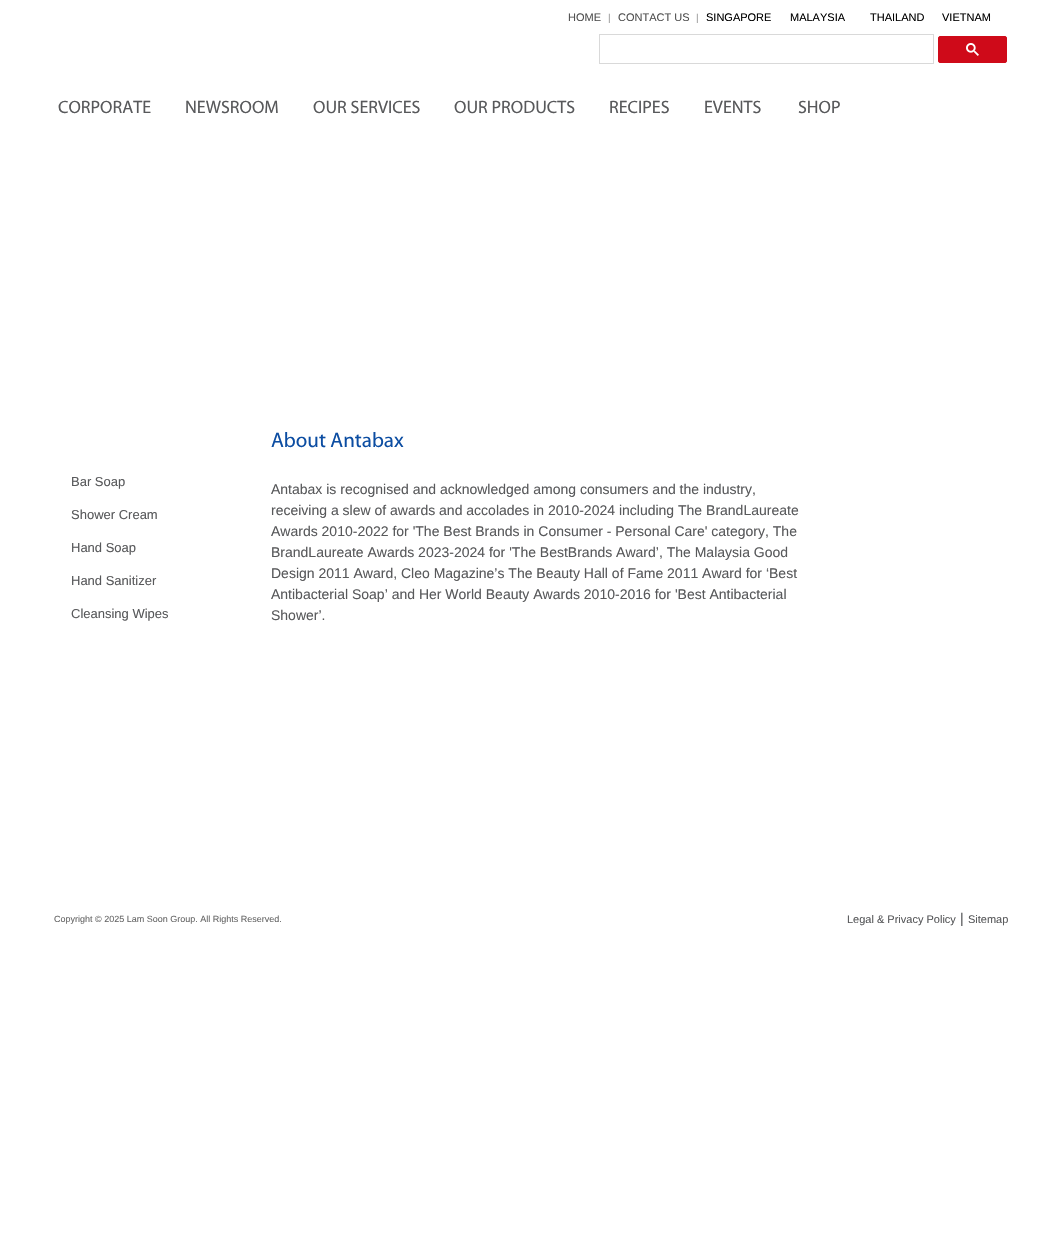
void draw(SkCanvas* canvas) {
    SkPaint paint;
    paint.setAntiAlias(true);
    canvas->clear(0xFFFFFFFF);
    SkFont font1(fontMgr->matchFamilyStyle("Liberation Sans", SkFontStyle::Normal()), 11);
    font1.setSubpixel(true);
    paint.setColor(0xFF505050);
    canvas->drawString("HOME", 568, 21, font1, paint);
    SkFont font2(fontMgr->matchFamilyStyle("Liberation Sans", SkFontStyle::Normal()), 10);
    font2.setSubpixel(true);
    paint.setColor(0xFF999999);
    canvas->drawString("|", 608, 21, font2, paint);
    paint.setColor(0xFF505050);
    canvas->drawString("CONTACT US", 618, 21, font1, paint);
    paint.setColor(0xFF999999);
    canvas->drawString("|", 696, 21, font2, paint);
    paint.setColor(0xFF000000);
    canvas->drawString("SINGAPORE", 706, 21, font1, paint);
    canvas->drawString("MALAYSIA", 790, 21, font1, paint);
    canvas->drawString("THAILAND", 870, 21, font1, paint);
    canvas->drawString("VIETNAM", 942, 21, font1, paint);
    paint.setStyle(SkPaint::kStroke_Style);
    paint.setStrokeWidth(1);
    paint.setColor(0xFFD9D9D9);
    canvas->drawRect(SkRect::MakeXYWH(599.5f, 34.5f, 334, 29), paint);
    paint.setStyle(SkPaint::kFill_Style);
    paint.setColor(0xFFCF0A19);
    canvas->drawRoundRect(SkRect::MakeXYWH(938.5f, 36.5f, 68, 26), 1.5f, 1.5f, paint);
    paint.setStyle(SkPaint::kStroke_Style);
    canvas->drawRoundRect(SkRect::MakeXYWH(938.5f, 36.5f, 68, 26), 1.5f, 1.5f, paint);
    canvas->drawImageRect(SkImages::DeferredFromEncodedData(SkData::MakeFromFileName("img1.png")), SkRect::MakeXYWH(966, 43, 13, 13), SkSamplingOptions());
    SkFont font3(fontMgr->matchFamilyStyle("Myriad", SkFontStyle::Normal()), 18);
    font3.setSubpixel(true);
    paint.setStyle(SkPaint::kFill_Style);
    paint.setColor(0xFF58595B);
    canvas->drawString("CORPORATE", 58, 113, font3, paint);
    canvas->drawString("NEWSROOM", 185, 113, font3, paint);
    canvas->drawString("OUR SERVICES", 313, 113, font3, paint);
    canvas->drawString("OUR PRODUCTS", 454, 113, font3, paint);
    canvas->drawString("RECIPES", 609, 113, font3, paint);
    canvas->drawString("EVENTS", 704, 113, font3, paint);
    canvas->drawString("SHOP", 798, 113, font3, paint);
    SkFont font4(fontMgr->matchFamilyStyle("Liberation Sans", SkFontStyle::Normal()), 13);
    font4.setSubpixel(true);
    canvas->drawString("Bar Soap", 71, 486, font4, paint);
    canvas->drawString("Shower Cream", 71, 519, font4, paint);
    canvas->drawString("Hand Soap", 71, 552, font4, paint);
    canvas->drawString("Hand Sanitizer", 71, 585, font4, paint);
    canvas->drawString("Cleansing Wipes", 71, 618, font4, paint);
    SkFont font5(fontMgr->matchFamilyStyle("Myriad", SkFontStyle::Normal()), 21);
    font5.setSubpixel(true);
    paint.setColor(0xFF0C4DA2);
    canvas->drawString("About Antabax", 271, 447, font5, paint);
    SkFont font6(fontMgr->matchFamilyStyle("Liberation Sans", SkFontStyle::Normal()), 14);
    font6.setSubpixel(true);
    paint.setColor(0xFF58595B);
    canvas->drawString("Antabax is recognised and acknowledged among consumers and the industry,", 271, 494, font6, paint);
    canvas->drawString("receiving a slew of awards and accolades in 2010-2024 including The BrandLaureate", 271, 515, font6, paint);
    canvas->drawString("Awards 2010-2022 for 'The Best Brands in Consumer - Personal Care' category, The", 271, 536, font6, paint);
    canvas->drawString("BrandLaureate Awards 2023-2024 for 'The BestBrands Award’, The Malaysia Good", 271, 557, font6, paint);
    canvas->drawString("Design 2011 Award, Cleo Magazine’s The Beauty Hall of Fame 2011 Award for ‘Best", 271, 578, font6, paint);
    canvas->drawString("Antibacterial Soap’ and Her World Beauty Awards 2010-2016 for 'Best Antibacterial", 271, 599, font6, paint);
    canvas->drawString("Shower’.", 271, 620, font6, paint);
    SkFont font7(fontMgr->matchFamilyStyle("Liberation Sans", SkFontStyle::Normal()), 9);
    font7.setSubpixel(true);
    paint.setColor(0xFF676767);
    canvas->drawString("Copyright © 2025 Lam Soon Group. All Rights Reserved.", 54, 922, font7, paint);
    paint.setColor(0xFF58595B);
    canvas->drawString("Legal & Privacy Policy", 847, 923, font1, paint);
    canvas->drawString("|", 960, 923, font6, paint);
    canvas->drawString("Sitemap", 968, 923, font1, paint);
}
